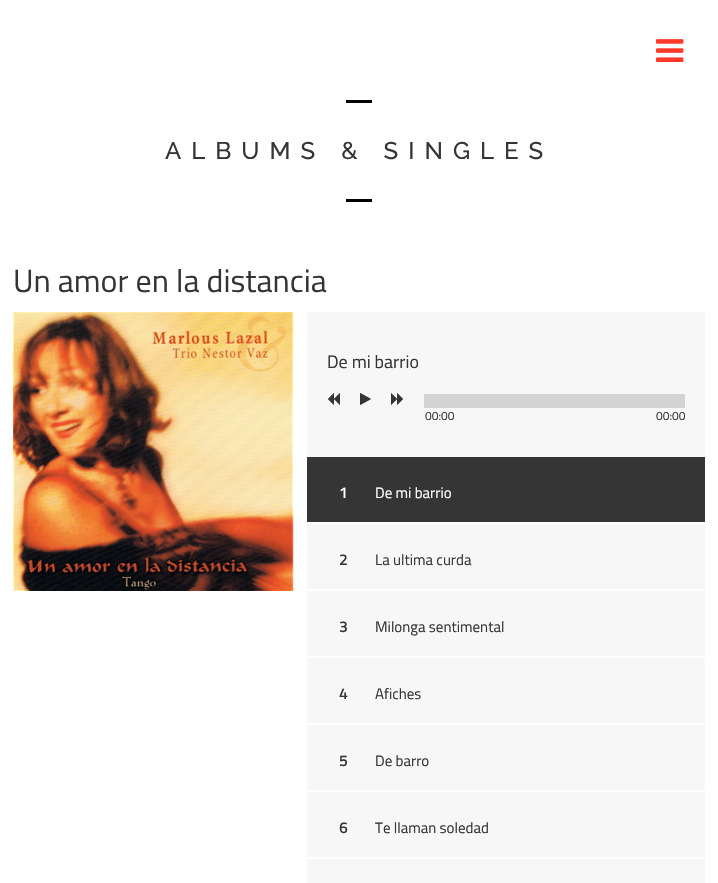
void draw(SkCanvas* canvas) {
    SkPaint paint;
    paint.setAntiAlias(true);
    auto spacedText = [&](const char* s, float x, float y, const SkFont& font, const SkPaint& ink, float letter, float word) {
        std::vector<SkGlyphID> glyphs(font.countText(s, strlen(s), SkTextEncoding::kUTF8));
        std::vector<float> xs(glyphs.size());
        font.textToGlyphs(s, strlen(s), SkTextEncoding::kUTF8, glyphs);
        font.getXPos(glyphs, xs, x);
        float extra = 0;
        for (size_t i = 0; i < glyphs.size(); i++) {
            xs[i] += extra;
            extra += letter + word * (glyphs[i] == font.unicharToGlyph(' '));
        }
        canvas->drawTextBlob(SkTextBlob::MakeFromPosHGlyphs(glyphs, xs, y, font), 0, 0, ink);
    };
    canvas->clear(0xFFFFFFFF);
    canvas->drawImageRect(SkImages::DeferredFromEncodedData(SkData::MakeFromFileName("img1.png")), SkRect::MakeXYWH(656, 39, 28, 23), SkSamplingOptions());
    paint.setColor(0xFF000000);
    canvas->drawRect(SkRect::MakeXYWH(346, 100, 26, 3), paint);
    SkFont font1(fontMgr->matchFamilyStyle("Raleway", SkFontStyle(100, SkFontStyle::kNormal_Width, SkFontStyle::kUpright_Slant)), 24);
    font1.setSubpixel(true);
    paint.setColor(0xFF353535);
    spacedText("ALBUMS & SINGLES", 165, 159, font1, paint, 10, 0);
    paint.setColor(0xFF000000);
    canvas->drawRect(SkRect::MakeXYWH(346, 199, 26, 3), paint);
    SkFont font2(fontMgr->matchFamilyStyle("Titillium Web", SkFontStyle::Normal()), 32);
    font2.setSubpixel(true);
    paint.setColor(0xFF353535);
    canvas->drawString("Un amor en la distancia", 13, 292, font2, paint);
    canvas->drawImageRect(SkImages::DeferredFromEncodedData(SkData::MakeFromFileName("img2.png")), SkRect::MakeXYWH(13, 312, 281, 279), SkSamplingOptions());
    paint.setColor(0xFFF7F7F7);
    canvas->drawRect(SkRect::MakeXYWH(307, 312, 398, 571), paint);
    SkFont font3(fontMgr->matchFamilyStyle("Titillium Web", SkFontStyle::Normal()), 18);
    font3.setSubpixel(true);
    paint.setColor(0xFF353535);
    canvas->drawString("De mi barrio", 327, 368, font3, paint);
    canvas->drawImageRect(SkImages::DeferredFromEncodedData(SkData::MakeFromFileName("img3.png")), SkRect::MakeXYWH(328, 393, 12, 12), SkSamplingOptions());
    canvas->drawImageRect(SkImages::DeferredFromEncodedData(SkData::MakeFromFileName("img4.png")), SkRect::MakeXYWH(360, 393, 11, 12), SkSamplingOptions());
    canvas->drawImageRect(SkImages::DeferredFromEncodedData(SkData::MakeFromFileName("img5.png")), SkRect::MakeXYWH(391, 393, 12, 12), SkSamplingOptions());
    paint.setColor(0xFFD3D3D3);
    canvas->drawRect(SkRect::MakeXYWH(424, 394, 261, 14), paint);
    SkFont font4(fontMgr->matchFamilyStyle("Titillium Web", SkFontStyle::Normal()), 12);
    font4.setSubpixel(true);
    paint.setColor(0xFF353535);
    canvas->drawString("00:00", 425, 420, font4, paint);
    canvas->drawString("00:00", 656, 420, font4, paint);
    canvas->drawRect(SkRect::MakeXYWH(307, 457, 398, 65), paint);
    paint.setColor(0xFFFFFFFF);
    canvas->drawRect(SkRect::MakeXYWH(307, 522, 398, 2), paint);
    SkFont font5(fontMgr->matchFamilyStyle("Titillium Web", SkFontStyle::Bold()), 15);
    font5.setSubpixel(true);
    canvas->drawString("1", 339, 498, font5, paint);
    SkFont font6(fontMgr->matchFamilyStyle("Titillium Web", SkFontStyle::Normal()), 15);
    font6.setSubpixel(true);
    canvas->drawString("De mi barrio", 375, 498, font6, paint);
    canvas->drawRect(SkRect::MakeXYWH(307, 589, 398, 2), paint);
    paint.setColor(0xFF353535);
    canvas->drawString("2", 339, 565, font5, paint);
    canvas->drawString("La ultima curda", 375, 565, font6, paint);
    paint.setColor(0xFFFFFFFF);
    canvas->drawRect(SkRect::MakeXYWH(307, 656, 398, 2), paint);
    paint.setColor(0xFF353535);
    canvas->drawString("3", 339, 632, font5, paint);
    canvas->drawString("Milonga sentimental", 375, 632, font6, paint);
    paint.setColor(0xFFFFFFFF);
    canvas->drawRect(SkRect::MakeXYWH(307, 723, 398, 2), paint);
    paint.setColor(0xFF353535);
    canvas->drawString("4", 339, 699, font5, paint);
    canvas->drawString("Afiches", 375, 699, font6, paint);
    paint.setColor(0xFFFFFFFF);
    canvas->drawRect(SkRect::MakeXYWH(307, 790, 398, 2), paint);
    paint.setColor(0xFF353535);
    canvas->drawString("5", 339, 766, font5, paint);
    canvas->drawString("De barro", 375, 766, font6, paint);
    paint.setColor(0xFFFFFFFF);
    canvas->drawRect(SkRect::MakeXYWH(307, 857, 398, 2), paint);
    paint.setColor(0xFF353535);
    canvas->drawString("6", 339, 833, font5, paint);
    canvas->drawString("Te llaman soledad", 375, 833, font6, paint);
}
